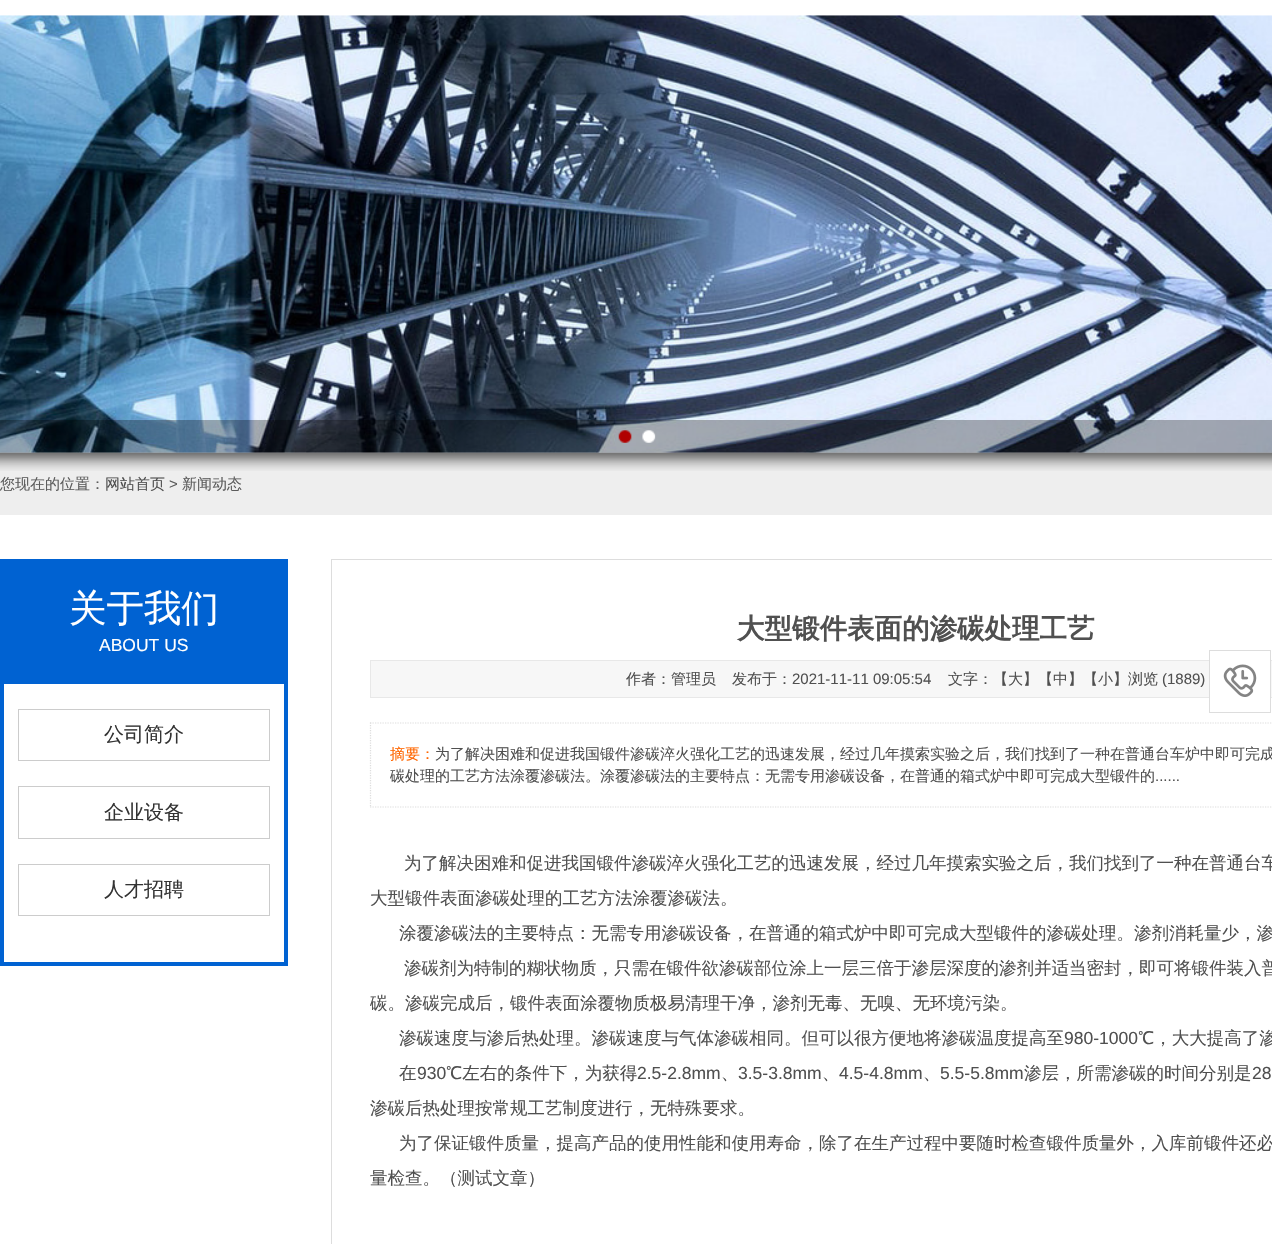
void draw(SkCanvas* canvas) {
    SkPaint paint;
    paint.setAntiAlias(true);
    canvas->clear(0xFFFFFFFF);
    paint.setColor(0xFFEEEEEE);
    canvas->drawRect(SkRect::MakeXYWH(0, 453, 1272, 62), paint);
    canvas->drawImageRect(SkImages::DeferredFromEncodedData(SkData::MakeFromFileName("img4.png")), SkRect::MakeXYWH(0, 452, 1272, 19), SkSamplingOptions());
    canvas->drawImageRect(SkImages::DeferredFromEncodedData(SkData::MakeFromFileName("img1.png")), SkRect::MakeXYWH(0, 15, 1272, 438), SkSamplingOptions());
    paint.setColor(0x4D000000);
    canvas->drawRect(SkRect::MakeXYWH(0, 420, 1272, 33), paint);
    canvas->drawImageRect(SkImages::DeferredFromEncodedData(SkData::MakeFromFileName("img2.png")), SkRect::MakeXYWH(618, 430, 14, 13), SkSamplingOptions());
    canvas->drawImageRect(SkImages::DeferredFromEncodedData(SkData::MakeFromFileName("img3.png")), SkRect::MakeXYWH(642, 430, 14, 13), SkSamplingOptions());
    SkFont font1(fontMgr->matchFamilyStyle("WenQuanYi Zen Hei", SkFontStyle(500, SkFontStyle::kNormal_Width, SkFontStyle::kUpright_Slant)), 15);
    font1.setSubpixel(true);
    paint.setColor(0xFF5C5C5C);
    canvas->drawString("您现在的位置：", 0, 489, font1, paint);
    paint.setColor(0xFF505050);
    canvas->drawString("网站首页", 105, 489, font1, paint);
    SkFont font2(fontMgr->matchFamilyStyle("Liberation Sans", SkFontStyle::Normal()), 15);
    font2.setSubpixel(true);
    paint.setColor(0xFF5C5C5C);
    canvas->drawString(">", 169, 489, font2, paint);
    canvas->drawString("新闻动态", 182, 489, font1, paint);
    paint.setStyle(SkPaint::kStroke_Style);
    paint.setStrokeWidth(4);
    paint.setColor(0xFF0062D2);
    canvas->drawRect(SkRect::MakeXYWH(2, 681, 284, 283), paint);
    paint.setStyle(SkPaint::kFill_Style);
    canvas->drawRect(SkRect::MakeXYWH(0, 559, 288, 125), paint);
    SkFont font3(fontMgr->matchFamilyStyle("WenQuanYi Zen Hei", SkFontStyle(500, SkFontStyle::kNormal_Width, SkFontStyle::kUpright_Slant)), 37.5f);
    font3.setSubpixel(true);
    paint.setColor(0xFFFFFFFF);
    canvas->drawString("关于我们", 69, 621, font3, paint);
    SkFont font4(fontMgr->matchFamilyStyle("Liberation Sans", SkFontStyle::Normal()), 17.5f);
    font4.setSubpixel(true);
    canvas->drawString("ABOUT US", 99, 651, font4, paint);
    paint.setStyle(SkPaint::kStroke_Style);
    paint.setStrokeWidth(1);
    paint.setColor(0xFFDDDDDD);
    canvas->drawRect(SkRect::MakeXYWH(331.5f, 559.5f, 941, 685), paint);
    SkFont font5(fontMgr->matchFamilyStyle("WenQuanYi Zen Hei", SkFontStyle::Bold()), 27.5f);
    font5.setSubpixel(true);
    paint.setStyle(SkPaint::kFill_Style);
    paint.setColor(0xFF505050);
    canvas->drawString("大型锻件表面的渗碳处理工艺", 737, 638, font5, paint);
    paint.setColor(0xFFF7F7F7);
    canvas->drawRect(SkRect::MakeXYWH(370.5f, 660.5f, 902, 37), paint);
    paint.setStyle(SkPaint::kStroke_Style);
    paint.setColor(0xFFE8E8E8);
    canvas->drawRect(SkRect::MakeXYWH(370.5f, 660.5f, 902, 37), paint);
    paint.setStyle(SkPaint::kFill_Style);
    paint.setColor(0xFF505050);
    canvas->drawString("作者：管理员", 626, 684, font1, paint);
    canvas->drawString("发布于：", 732, 684, font1, paint);
    canvas->drawString("2021-11-11 09:05:54", 792, 684, font2, paint);
    canvas->drawString("文字：【大】【中】【小】浏览", 948, 684, font1, paint);
    canvas->drawString("(1889)", 1162, 684, font2, paint);
    paint.setStyle(SkPaint::kStroke_Style);
    paint.setStrokeWidth(1.2f);
    paint.setColor(0xFFDDDDDD);
    paint.setPathEffect(SkDashPathEffect::Make({{1.25f, 1.25f}}, 0));
    canvas->drawPath(SkPathBuilder().moveTo(370, 723).lineTo(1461, 723).detach(), paint);
    paint.setPathEffect(nullptr);
    paint.setPathEffect(SkDashPathEffect::Make({{1.25f, 1.25f}}, 0));
    canvas->drawPath(SkPathBuilder().moveTo(370, 807).lineTo(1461, 807).detach(), paint);
    paint.setPathEffect(nullptr);
    paint.setPathEffect(SkDashPathEffect::Make({{1.25f, 1.25f}}, 0));
    canvas->drawPath(SkPathBuilder().moveTo(370.5f, 722.5f).lineTo(370.5f, 807.5f).detach(), paint);
    paint.setPathEffect(nullptr);
    paint.setStyle(SkPaint::kFill_Style);
    paint.setColor(0xFFFF6600);
    canvas->drawString("摘要：", 390, 759, font1, paint);
    paint.setColor(0xFF505050);
    canvas->drawString("为了解决困难和促进我国锻件渗碳淬火强化工艺的迅速发展，经过几年摸索实验之后，我们找到了一种在普通台车炉中即可完成", 435, 759, font1, paint);
    canvas->drawString("碳处理的工艺方法涂覆渗碳法。涂覆渗碳法的主要特点：无需专用渗碳设备，在普通的箱式炉中即可完成大型锻件的", 390, 781, font1, paint);
    canvas->drawString("......", 1155, 781, font2, paint);
    SkFont font6(fontMgr->matchFamilyStyle("WenQuanYi Zen Hei", SkFontStyle(500, SkFontStyle::kNormal_Width, SkFontStyle::kUpright_Slant)), 17.5f);
    font6.setSubpixel(true);
    canvas->drawString("为了解决困难和促进我国锻件渗碳淬火强化工艺的迅速发展，经过几年摸索实验之后，我们找到了一种在普通台车", 404, 869, font6, paint);
    canvas->drawString("大型锻件表面渗碳处理的工艺方法涂覆渗碳法。", 370, 904, font6, paint);
    canvas->drawString("涂覆渗碳法的主要特点：无需专用渗碳设备，在普通的箱式炉中即可完成大型锻件的渗碳处理。渗剂消耗量少，渗", 399, 939, font6, paint);
    canvas->drawString("渗碳剂为特制的糊状物质，只需在锻件欲渗碳部位涂上一层三倍于渗层深度的渗剂并适当密封，即可将锻件装入普", 404, 974, font6, paint);
    canvas->drawString("碳。渗碳完成后，锻件表面涂覆物质极易清理干净，渗剂无毒、无嗅、无环境污染。", 370, 1009, font6, paint);
    canvas->drawString("渗碳速度与渗后热处理。渗碳速度与气体渗碳相同。但可以很方便地将渗碳温度提高至", 399, 1044, font6, paint);
    canvas->drawString("980-1000", 1064, 1044, font4, paint);
    canvas->drawString("℃，大大提高了渗", 1138, 1044, font6, paint);
    canvas->drawString("在", 399, 1079, font6, paint);
    canvas->drawString("930", 417, 1079, font4, paint);
    canvas->drawString("℃左右的条件下，为获得", 446, 1079, font6, paint);
    canvas->drawString("2.5-2.8mm", 637, 1079, font4, paint);
    canvas->drawString("、", 721, 1079, font6, paint);
    canvas->drawString("3.5-3.8mm", 738, 1079, font4, paint);
    canvas->drawString("、", 822, 1079, font6, paint);
    canvas->drawString("4.5-4.8mm", 839, 1079, font4, paint);
    canvas->drawString("、", 923, 1079, font6, paint);
    canvas->drawString("5.5-5.8mm", 940, 1079, font4, paint);
    canvas->drawString("渗层，所需渗碳的时间分别是", 1024, 1079, font6, paint);
    canvas->drawString("28", 1252, 1079, font4, paint);
    canvas->drawString("渗碳后热处理按常规工艺制度进行，无特殊要求。", 370, 1114, font6, paint);
    canvas->drawString("为了保证锻件质量，提高产品的使用性能和使用寿命，除了在生产过程中要随时检查锻件质量外，入库前锻件还必", 399, 1149, font6, paint);
    canvas->drawString("量检查。（测试文章）", 370, 1184, font6, paint);
    paint.setStyle(SkPaint::kStroke_Style);
    paint.setStrokeWidth(1);
    paint.setColor(0xFFCCCCCC);
    canvas->drawRect(SkRect::MakeXYWH(18.5f, 709.5f, 251, 51), paint);
    SkFont font7(fontMgr->matchFamilyStyle("WenQuanYi Zen Hei", SkFontStyle(500, SkFontStyle::kNormal_Width, SkFontStyle::kUpright_Slant)), 20);
    font7.setSubpixel(true);
    paint.setStyle(SkPaint::kFill_Style);
    paint.setColor(0xFF333333);
    canvas->drawString("公司简介", 104, 741, font7, paint);
    paint.setStyle(SkPaint::kStroke_Style);
    paint.setColor(0xFFCCCCCC);
    canvas->drawRect(SkRect::MakeXYWH(18.5f, 786.5f, 251, 52), paint);
    paint.setStyle(SkPaint::kFill_Style);
    paint.setColor(0xFF333333);
    canvas->drawString("企业设备", 104, 819, font7, paint);
    paint.setStyle(SkPaint::kStroke_Style);
    paint.setColor(0xFFCCCCCC);
    canvas->drawRect(SkRect::MakeXYWH(18.5f, 864.5f, 251, 51), paint);
    paint.setStyle(SkPaint::kFill_Style);
    paint.setColor(0xFF333333);
    canvas->drawString("人才招聘", 104, 896, font7, paint);
    paint.setColor(0xFFFFFFFF);
    canvas->drawRect(SkRect::MakeXYWH(1210, 660, 60, 38), paint);
    paint.setStyle(SkPaint::kStroke_Style);
    paint.setColor(0xFFDDDDDD);
    canvas->drawRect(SkRect::MakeXYWH(1209.5f, 650.5f, 61, 62), paint);
    canvas->drawImageRect(SkImages::DeferredFromEncodedData(SkData::MakeFromFileName("img5.png")), SkRect::MakeXYWH(1223, 664, 34, 33), SkSamplingOptions());
}
